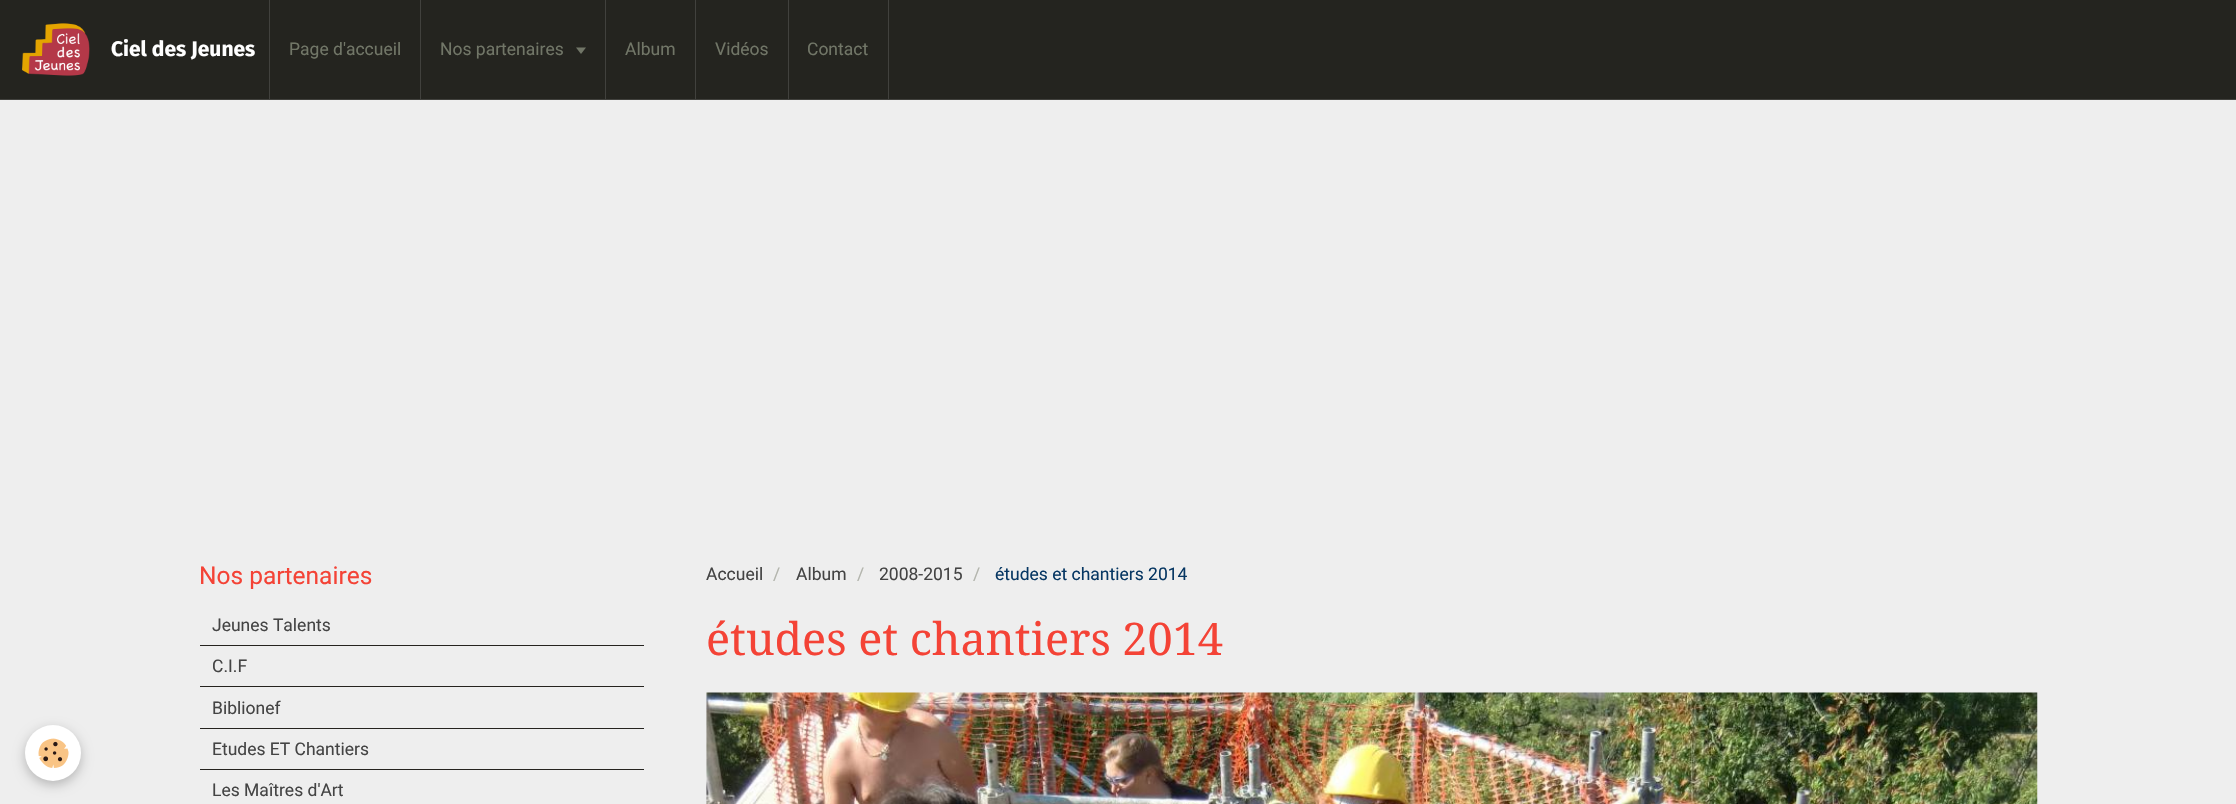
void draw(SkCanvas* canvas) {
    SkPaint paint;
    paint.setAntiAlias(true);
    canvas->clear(0xFFEEEEEE);
    paint.setColor(0xFF24241F);
    canvas->drawRect(SkRect::MakeXYWH(0, 0, 2236, 99), paint);
    paint.setColor(0xFF41413D);
    canvas->drawRect(SkRect::MakeXYWH(0, 99, 2236, 1), paint);
    canvas->drawImageRect(SkImages::DeferredFromEncodedData(SkData::MakeFromFileName("img1.png")), SkRect::MakeXYWH(22, 23, 68, 53), SkSamplingOptions());
    SkFont font1(fontMgr->matchFamilyStyle("Fira Sans", SkFontStyle::Bold()), 21);
    font1.setSubpixel(true);
    paint.setColor(0xFFFFFFFF);
    canvas->drawString("Ciel des Jeunes", 111, 56, font1, paint);
    paint.setColor(0xFF41413D);
    canvas->drawRect(SkRect::MakeXYWH(420, 0, 1, 99), paint);
    canvas->drawRect(SkRect::MakeXYWH(269, 0, 1, 99), paint);
    SkFont font2(fontMgr->matchFamilyStyle("Roboto", SkFontStyle::Normal()), 17.5f);
    font2.setSubpixel(true);
    paint.setColor(0xFF717667);
    canvas->drawString("Page d'accueil", 289, 55, font2, paint);
    paint.setColor(0xFF41413D);
    canvas->drawRect(SkRect::MakeXYWH(605, 0, 1, 99), paint);
    paint.setColor(0xFF717667);
    canvas->drawString("Nos partenaires", 440, 55, font2, paint);
    canvas->drawPath(SkPathBuilder().moveTo(576, 47.5f).lineTo(586, 47.5f).lineTo(581, 54).close().detach(), paint);
    paint.setColor(0xFF41413D);
    canvas->drawRect(SkRect::MakeXYWH(695, 0, 1, 99), paint);
    paint.setColor(0xFF717667);
    canvas->drawString("Album", 625, 55, font2, paint);
    paint.setColor(0xFF41413D);
    canvas->drawRect(SkRect::MakeXYWH(788, 0, 1, 99), paint);
    paint.setColor(0xFF717667);
    canvas->drawString("Vidéos", 715, 55, font2, paint);
    paint.setColor(0xFF41413D);
    canvas->drawRect(SkRect::MakeXYWH(888, 0, 1, 99), paint);
    paint.setColor(0xFF717667);
    canvas->drawString("Contact", 807, 55, font2, paint);
    paint.setColor(0x3D000000);
    paint.setMaskFilter(SkMaskFilter::MakeBlur(kNormal_SkBlurStyle, 6));
    canvas->drawRoundRect(SkRect::MakeXYWH(25, 729, 56, 56), 28, 28, paint);
    paint.setMaskFilter(nullptr);
    paint.setColor(0xFFFFFFFF);
    canvas->drawCircle(53, 753, 28, paint);
    canvas->drawImageRect(SkImages::DeferredFromEncodedData(SkData::MakeFromFileName("img2.png")), SkRect::MakeXYWH(38, 738, 31, 30), SkSamplingOptions());
    SkFont font3(fontMgr->matchFamilyStyle("Roboto", SkFontStyle::Normal()), 24.5f);
    font3.setSubpixel(true);
    paint.setColor(0xFFF44336);
    canvas->drawString("Nos partenaires", 199, 584, font3, paint);
    paint.setColor(0xFF25231F);
    canvas->drawRect(SkRect::MakeXYWH(200, 645, 444, 1), paint);
    paint.setColor(0xFF444444);
    canvas->drawString("Jeunes Talents", 212, 631, font2, paint);
    paint.setColor(0xFF25231F);
    canvas->drawRect(SkRect::MakeXYWH(200, 686, 444, 1), paint);
    paint.setColor(0xFF444444);
    canvas->drawString("C.I.F", 212, 672, font2, paint);
    paint.setColor(0xFF25231F);
    canvas->drawRect(SkRect::MakeXYWH(200, 728, 444, 1), paint);
    paint.setColor(0xFF444444);
    canvas->drawString("Biblionef", 212, 714, font2, paint);
    paint.setColor(0xFF25231F);
    canvas->drawRect(SkRect::MakeXYWH(200, 769, 444, 1), paint);
    paint.setColor(0xFF444444);
    canvas->drawString("Etudes ET Chantiers", 212, 755, font2, paint);
    canvas->drawString("Les Maîtres d'Art", 212, 796, font2, paint);
    canvas->drawString("Accueil", 706, 580, font2, paint);
    paint.setColor(0xFFB3B5AD);
    canvas->drawString("/", 773, 580, font2, paint);
    paint.setColor(0xFF444444);
    canvas->drawString("Album", 796, 580, font2, paint);
    paint.setColor(0xFFB3B5AD);
    canvas->drawString("/", 857, 580, font2, paint);
    paint.setColor(0xFF444444);
    canvas->drawString("2008-2015", 879, 580, font2, paint);
    paint.setColor(0xFFB3B5AD);
    canvas->drawString("/", 973, 580, font2, paint);
    paint.setColor(0xFF073763);
    canvas->drawString("études et chantiers 2014", 995, 580, font2, paint);
    SkFont font4(fontMgr->matchFamilyStyle("Droid Serif", SkFontStyle::Normal()), 45);
    font4.setSubpixel(true);
    paint.setColor(0xFFF44336);
    canvas->drawString("études et chantiers 2014", 706, 655, font4, paint);
    canvas->drawImageRect(SkImages::DeferredFromEncodedData(SkData::MakeFromFileName("img3.png")), SkRect::MakeXYWH(706, 692, 1332, 112), SkSamplingOptions());
}
